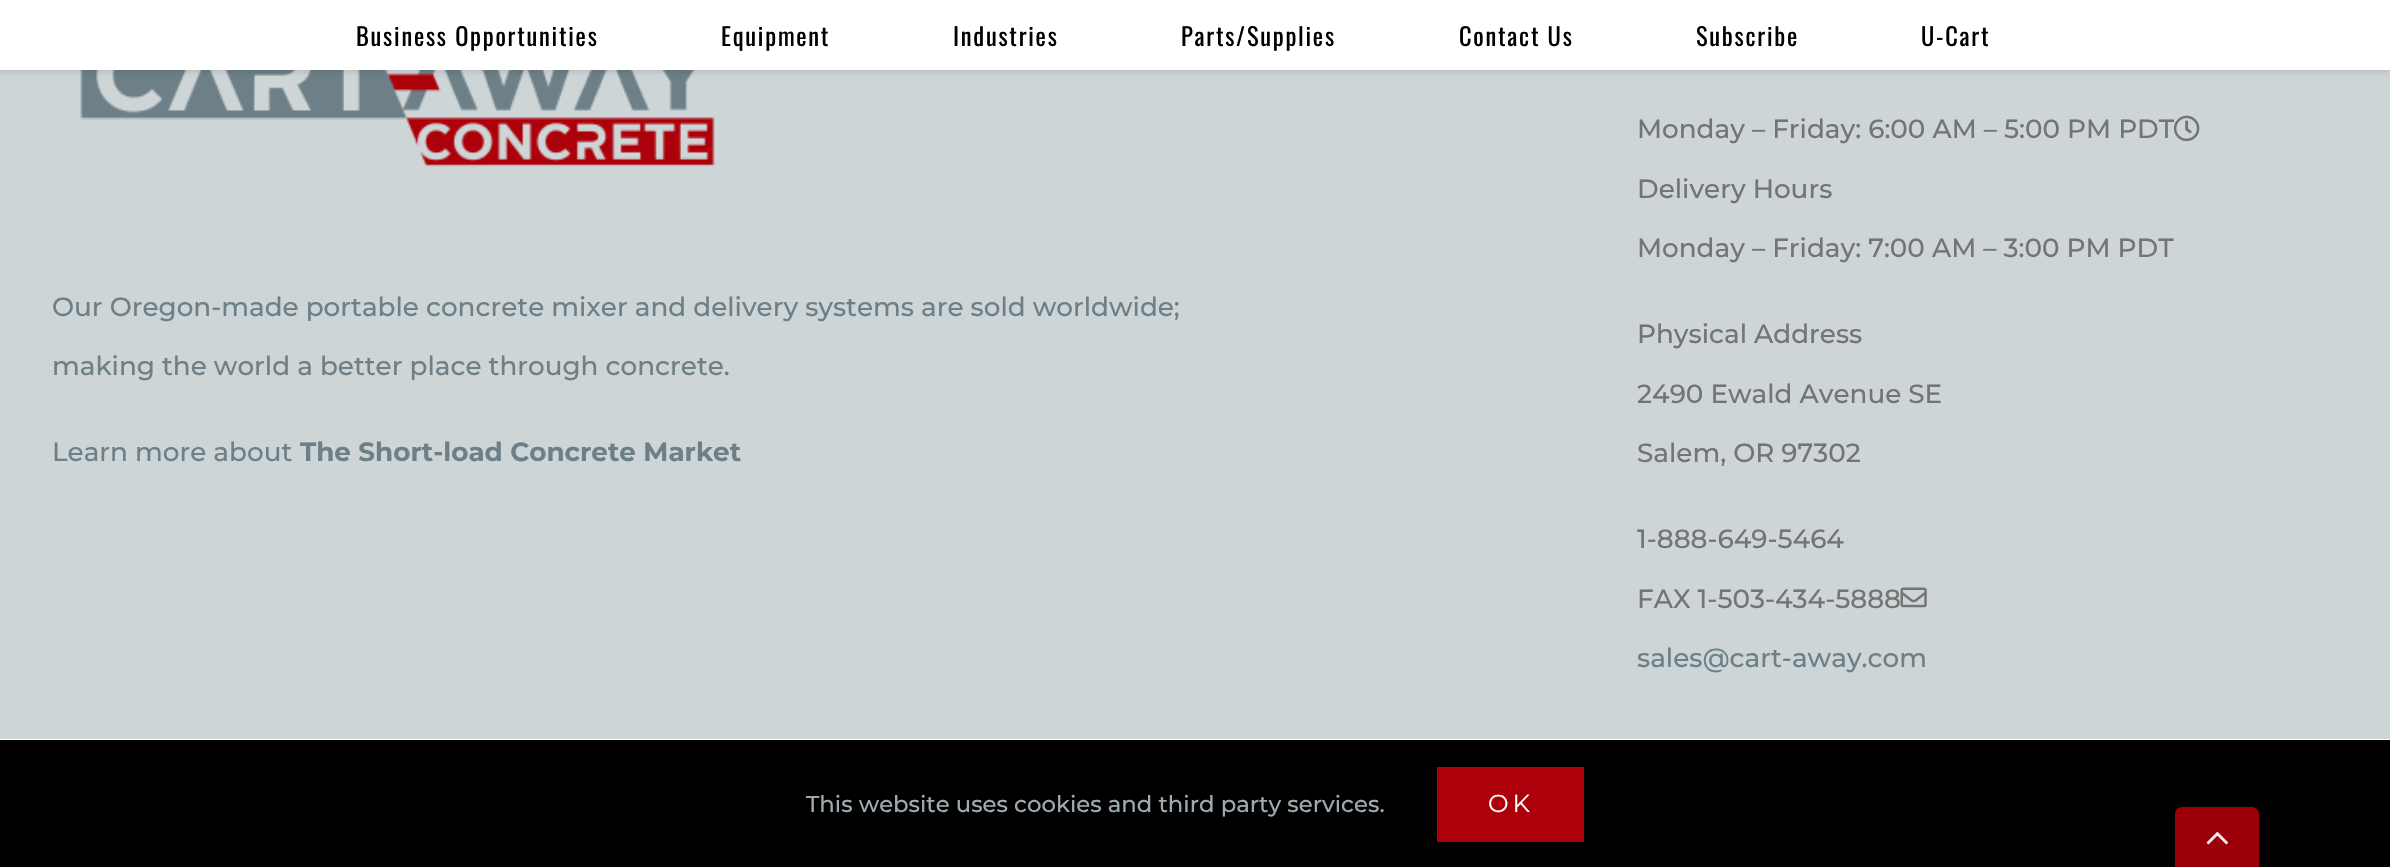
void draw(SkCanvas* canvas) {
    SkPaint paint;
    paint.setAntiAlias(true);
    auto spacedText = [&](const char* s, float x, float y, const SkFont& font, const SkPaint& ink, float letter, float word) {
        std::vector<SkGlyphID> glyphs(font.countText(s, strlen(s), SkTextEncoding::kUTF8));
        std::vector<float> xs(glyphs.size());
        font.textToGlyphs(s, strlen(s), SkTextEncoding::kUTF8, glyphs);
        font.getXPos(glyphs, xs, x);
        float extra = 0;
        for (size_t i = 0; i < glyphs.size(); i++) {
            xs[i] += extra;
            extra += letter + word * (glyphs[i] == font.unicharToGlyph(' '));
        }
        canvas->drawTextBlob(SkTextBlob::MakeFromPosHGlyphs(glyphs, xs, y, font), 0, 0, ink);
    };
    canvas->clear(0xFFFFFFFF);
    paint.setColor(0xFFCED5D7);
    canvas->drawRect(SkRect::MakeXYWH(0, 70, 2390, 669), paint);
    canvas->drawImageRect(SkImages::DeferredFromEncodedData(SkData::MakeFromFileName("img1.png")), SkRect::MakeXYWH(80, 70, 635, 97), SkSamplingOptions());
    paint.setColor(0x1F000000);
    paint.setMaskFilter(SkMaskFilter::MakeBlur(kNormal_SkBlurStyle, 2.5f));
    canvas->drawRect(SkRect::MakeXYWH(0, 2, 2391, 70), paint);
    paint.setMaskFilter(nullptr);
    paint.setColor(0xFFFFFFFF);
    canvas->drawRect(SkRect::MakeXYWH(0, 0, 2390, 70), paint);
    SkFont font1(fontMgr->matchFamilyStyle("Oswald", SkFontStyle::Normal()), 24.5f);
    font1.setSubpixel(true);
    paint.setColor(0xFF000000);
    spacedText("Business Opportunities", 356, 46, font1, paint, 1.75f, 0);
    spacedText("Equipment", 721, 46, font1, paint, 1.75f, 0);
    spacedText("Industries", 953, 46, font1, paint, 1.75f, 0);
    spacedText("Parts/Supplies", 1181, 46, font1, paint, 1.75f, 0);
    spacedText("Contact Us", 1459, 46, font1, paint, 1.75f, 0);
    spacedText("Subscribe", 1696, 46, font1, paint, 1.75f, 0);
    spacedText("U-Cart", 1921, 46, font1, paint, 1.75f, 0);
    SkFont font2(fontMgr->matchFamilyStyle("Montserrat", SkFontStyle(500, SkFontStyle::kNormal_Width, SkFontStyle::kUpright_Slant)), 26.25f);
    font2.setSubpixel(true);
    paint.setColor(0xFF747474);
    canvas->drawString("Monday – Friday: 6:00 AM – 5:00 PM PDT", 1637, 138, font2, paint);
    canvas->drawImageRect(SkImages::DeferredFromEncodedData(SkData::MakeFromFileName("img2.png")), SkRect::MakeXYWH(2173, 115, 27, 27), SkSamplingOptions());
    canvas->drawString("Delivery Hours", 1637, 198, font2, paint);
    canvas->drawString("Monday – Friday: 7:00 AM – 3:00 PM PDT", 1637, 257, font2, paint);
    canvas->drawString("Physical Address", 1637, 343, font2, paint);
    canvas->drawString("2490 Ewald Avenue SE", 1637, 403, font2, paint);
    canvas->drawString("Salem, OR 97302", 1637, 462, font2, paint);
    canvas->drawString("1-888-649-5464", 1637, 548, font2, paint);
    canvas->drawString("FAX 1-503-434-5888", 1637, 608, font2, paint);
    canvas->drawImageRect(SkImages::DeferredFromEncodedData(SkData::MakeFromFileName("img3.png")), SkRect::MakeXYWH(1900, 587, 27, 21), SkSamplingOptions());
    paint.setColor(0xFF6D8087);
    canvas->drawString("sales@cart-away.com", 1637, 667, font2, paint);
    canvas->drawString("Our Oregon-made portable concrete mixer and delivery systems are sold worldwide;", 52, 316, font2, paint);
    canvas->drawString("making the world a better place through concrete.", 52, 375, font2, paint);
    canvas->drawString("Learn more about", 52, 461, font2, paint);
    SkFont font3(fontMgr->matchFamilyStyle("Montserrat", SkFontStyle::Bold()), 26.25f);
    font3.setSubpixel(true);
    canvas->drawString("The Short-load Concrete Market", 300, 461, font3, paint);
    paint.setColor(0xFF000000);
    canvas->drawRect(SkRect::MakeXYWH(0, 740, 2390, 127), paint);
    SkFont font4(fontMgr->matchFamilyStyle("Montserrat", SkFontStyle(500, SkFontStyle::kNormal_Width, SkFontStyle::kUpright_Slant)), 22.75f);
    font4.setSubpixel(true);
    paint.setColor(0xFF9EAAAF);
    canvas->drawString("This website uses cookies and third party services.", 806, 812, font4, paint);
    paint.setColor(0xFFAC000A);
    canvas->drawRect(SkRect::MakeXYWH(1437, 767, 147, 75), paint);
    SkFont font5(fontMgr->matchFamilyStyle("Montserrat", SkFontStyle::Normal()), 24.5f);
    font5.setSubpixel(true);
    paint.setColor(0xFFFFFFFF);
    spacedText("OK", 1488, 812, font5, paint, 4, 0);
    paint.setColor(0xFF9B0009);
    canvas->drawPath(SkPathBuilder().moveTo(2182, 807).lineTo(2252, 807).cubicTo(2256, 807, 2259, 810, 2259, 814).lineTo(2259, 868).lineTo(2175, 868).lineTo(2175, 814).cubicTo(2175, 810, 2178, 807, 2182, 807).close().detach(), paint);
    canvas->drawImageRect(SkImages::DeferredFromEncodedData(SkData::MakeFromFileName("img4.png")), SkRect::MakeXYWH(2206, 831, 22, 14), SkSamplingOptions());
}
